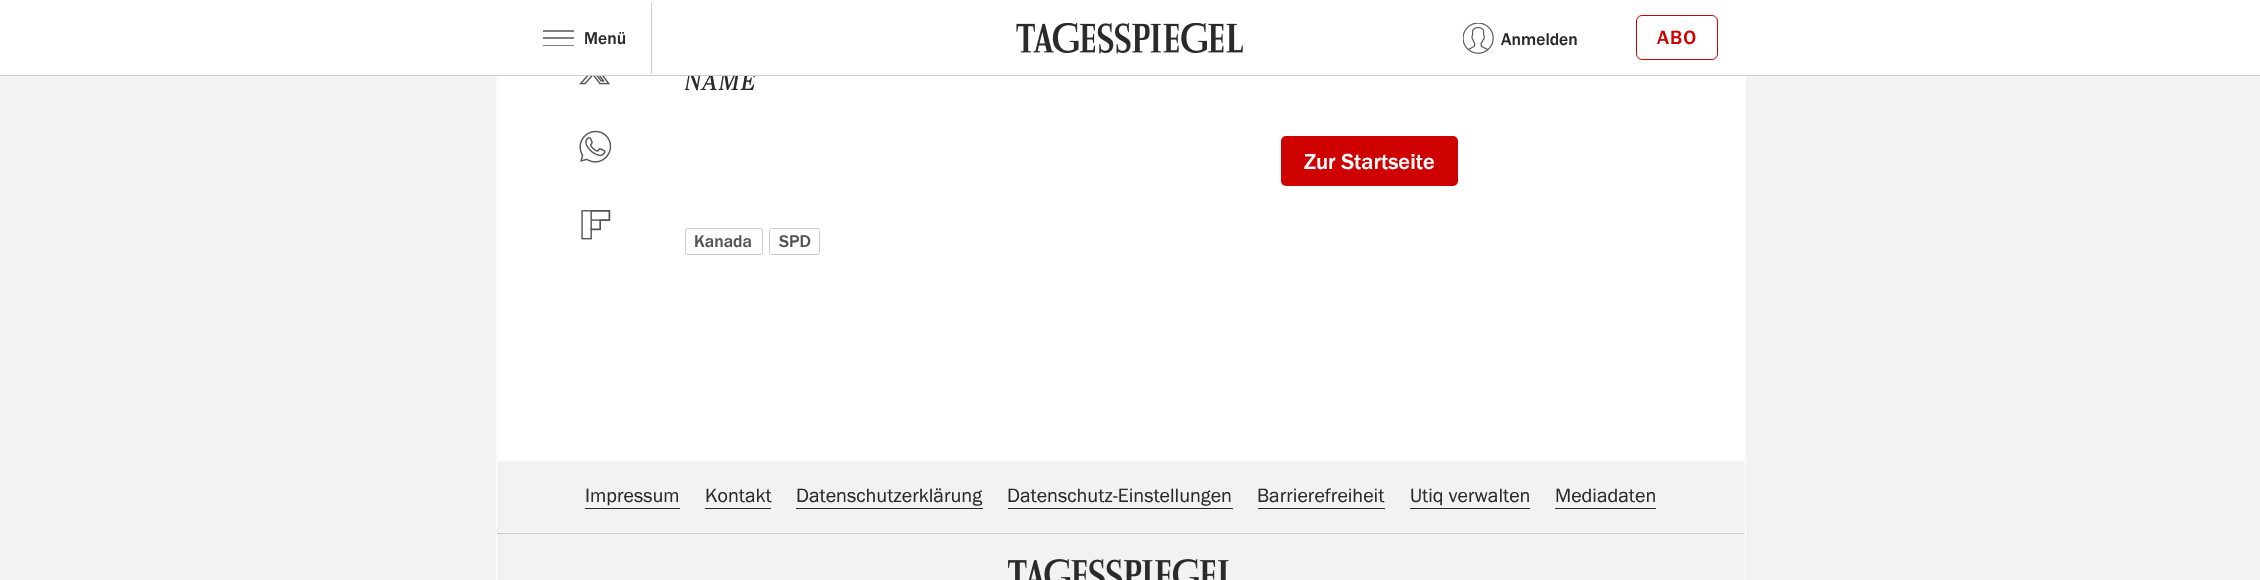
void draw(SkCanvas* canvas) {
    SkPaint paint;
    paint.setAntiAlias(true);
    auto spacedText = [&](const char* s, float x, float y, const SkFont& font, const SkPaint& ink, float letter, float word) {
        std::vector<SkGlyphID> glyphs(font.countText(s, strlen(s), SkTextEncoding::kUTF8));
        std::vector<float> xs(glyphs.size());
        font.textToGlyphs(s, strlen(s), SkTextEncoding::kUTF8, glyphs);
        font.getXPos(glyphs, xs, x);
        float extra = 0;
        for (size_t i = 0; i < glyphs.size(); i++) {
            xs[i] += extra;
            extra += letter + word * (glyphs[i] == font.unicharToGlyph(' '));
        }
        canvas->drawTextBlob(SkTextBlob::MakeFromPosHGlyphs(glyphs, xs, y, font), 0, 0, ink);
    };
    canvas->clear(0xFFF2F2F2);
    paint.setColor(0xFFFFFFFF);
    canvas->drawRect(SkRect::MakeXYWH(1745, 76, 1, 504), paint);
    canvas->drawRect(SkRect::MakeXYWH(496, 76, 1, 504), paint);
    canvas->drawRect(SkRect::MakeXYWH(498, 76, 1247, 385), paint);
    SkFont font1(fontMgr->matchFamilyStyle("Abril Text", SkFontStyle::Italic()), 25);
    font1.setSubpixel(true);
    paint.setColor(0xFF2A2A2A);
    canvas->drawString("NAME", 684, 90, font1, paint);
    paint.setColor(0xFFFFFFFF);
    canvas->drawRect(SkRect::MakeXYWH(0, 0, 2260, 75), paint);
    paint.setColor(0xFFCDCDCD);
    canvas->drawRect(SkRect::MakeXYWH(0, 75, 2260, 1), paint);
    canvas->drawRect(SkRect::MakeXYWH(651, 3, 1, 71), paint);
    canvas->save();
    canvas->clipRect(SkRect::MakeXYWH(543, 30, 31, 16));
    paint.setStyle(SkPaint::kStroke_Style);
    paint.setStrokeWidth(1.6f);
    paint.setColor(0xFF535353);
    canvas->drawPath(SkPathBuilder().moveTo(542.5f, 31).lineTo(574, 31).moveTo(542.5f, 38).lineTo(574, 38).moveTo(542.5f, 46).lineTo(574, 46).detach(), paint);
    canvas->restore();
    SkFont font2(fontMgr->matchFamilyStyle("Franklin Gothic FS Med", SkFontStyle(500, SkFontStyle::kNormal_Width, SkFontStyle::kUpright_Slant)), 17.5f);
    font2.setSubpixel(true);
    paint.setStyle(SkPaint::kFill_Style);
    paint.setColor(0xFF2A2A2A);
    canvas->drawString("Menü", 584, 44, font2, paint);
    canvas->drawImageRect(SkImages::DeferredFromEncodedData(SkData::MakeFromFileName("img1.png")), SkRect::MakeXYWH(1016, 23, 227, 31), SkSamplingOptions());
    canvas->drawImageRect(SkImages::DeferredFromEncodedData(SkData::MakeFromFileName("img2.png")), SkRect::MakeXYWH(1463, 23, 31, 31), SkSamplingOptions());
    canvas->drawString("Anmelden", 1501, 45, font2, paint);
    paint.setStyle(SkPaint::kStroke_Style);
    paint.setStrokeWidth(1);
    paint.setColor(0xFFCE0000);
    canvas->drawRoundRect(SkRect::MakeXYWH(1636.5f, 15.5f, 81, 44), 5.5f, 5.5f, paint);
    SkFont font3(fontMgr->matchFamilyStyle("Franklin Gothic FS Med", SkFontStyle(500, SkFontStyle::kNormal_Width, SkFontStyle::kUpright_Slant)), 20);
    font3.setSubpixel(true);
    paint.setStyle(SkPaint::kFill_Style);
    spacedText("ABO", 1657, 44, font3, paint, 1, 0);
    paint.setColor(0xFFFFFFFF);
    canvas->drawRect(SkRect::MakeXYWH(684, 89, 1, 1), paint);
    canvas->drawImageRect(SkImages::DeferredFromEncodedData(SkData::MakeFromFileName("img3.png")), SkRect::MakeXYWH(579, 76, 31, 9), SkSamplingOptions());
    canvas->drawImageRect(SkImages::DeferredFromEncodedData(SkData::MakeFromFileName("img4.png")), SkRect::MakeXYWH(579, 130, 33, 33), SkSamplingOptions());
    canvas->drawImageRect(SkImages::DeferredFromEncodedData(SkData::MakeFromFileName("img5.png")), SkRect::MakeXYWH(581, 210, 30, 30), SkSamplingOptions());
    paint.setColor(0xFFCE0000);
    canvas->drawRoundRect(SkRect::MakeXYWH(1281, 136, 177, 50), 5, 5, paint);
    SkFont font4(fontMgr->matchFamilyStyle("Franklin Gothic FS Med", SkFontStyle(500, SkFontStyle::kNormal_Width, SkFontStyle::kUpright_Slant)), 22.5f);
    font4.setSubpixel(true);
    paint.setColor(0xFFFFFFFF);
    canvas->drawString("Zur Startseite", 1304, 169, font4, paint);
    paint.setStyle(SkPaint::kStroke_Style);
    paint.setColor(0xFFCDCDCD);
    canvas->drawRoundRect(SkRect::MakeXYWH(685.5f, 228.5f, 77, 26), 2, 2, paint);
    paint.setStyle(SkPaint::kFill_Style);
    paint.setColor(0xFF535353);
    canvas->drawString("Kanada", 694, 247, font2, paint);
    paint.setStyle(SkPaint::kStroke_Style);
    paint.setColor(0xFFCDCDCD);
    canvas->drawRoundRect(SkRect::MakeXYWH(769.5f, 228.5f, 50, 26), 2, 2, paint);
    paint.setStyle(SkPaint::kFill_Style);
    paint.setColor(0xFF535353);
    canvas->drawString("SPD", 779, 247, font2, paint);
    SkFont font5(fontMgr->matchFamilyStyle("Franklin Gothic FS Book", SkFontStyle::Normal()), 20);
    font5.setSubpixel(true);
    paint.setColor(0xFF2A2A2A);
    canvas->drawString("Impressum", 585, 502, font5, paint);
    canvas->drawRect(SkRect::MakeXYWH(585, 508, 95, 1), paint);
    canvas->drawString("Kontakt", 705, 502, font5, paint);
    canvas->drawRect(SkRect::MakeXYWH(705, 508, 66, 1), paint);
    canvas->drawString("Datenschutzerklärung", 796, 502, font5, paint);
    canvas->drawRect(SkRect::MakeXYWH(796, 508, 187, 1), paint);
    canvas->drawString("Datenschutz-Einstellungen", 1007, 502, font5, paint);
    canvas->drawRect(SkRect::MakeXYWH(1008, 508, 225, 1), paint);
    canvas->drawString("Barrierefreiheit", 1257, 502, font5, paint);
    canvas->drawRect(SkRect::MakeXYWH(1258, 508, 127, 1), paint);
    canvas->drawString("Utiq verwalten", 1410, 502, font5, paint);
    canvas->drawRect(SkRect::MakeXYWH(1410, 508, 120, 1), paint);
    canvas->drawString("Mediadaten", 1555, 502, font5, paint);
    canvas->drawRect(SkRect::MakeXYWH(1555, 508, 101, 1), paint);
    paint.setColor(0xFFCDCDCD);
    canvas->drawRect(SkRect::MakeXYWH(498, 533, 1247, 1), paint);
    paint.setColor(0xFFEEEEEE);
    canvas->drawRect(SkRect::MakeXYWH(1744, 533, 1, 1), paint);
    paint.setColor(0xFF9F9F9F);
    canvas->drawRect(SkRect::MakeXYWH(498, 533, 1, 1), paint);
    canvas->drawImageRect(SkImages::DeferredFromEncodedData(SkData::MakeFromFileName("img6.png")), SkRect::MakeXYWH(1008, 559, 221, 21), SkSamplingOptions());
}
